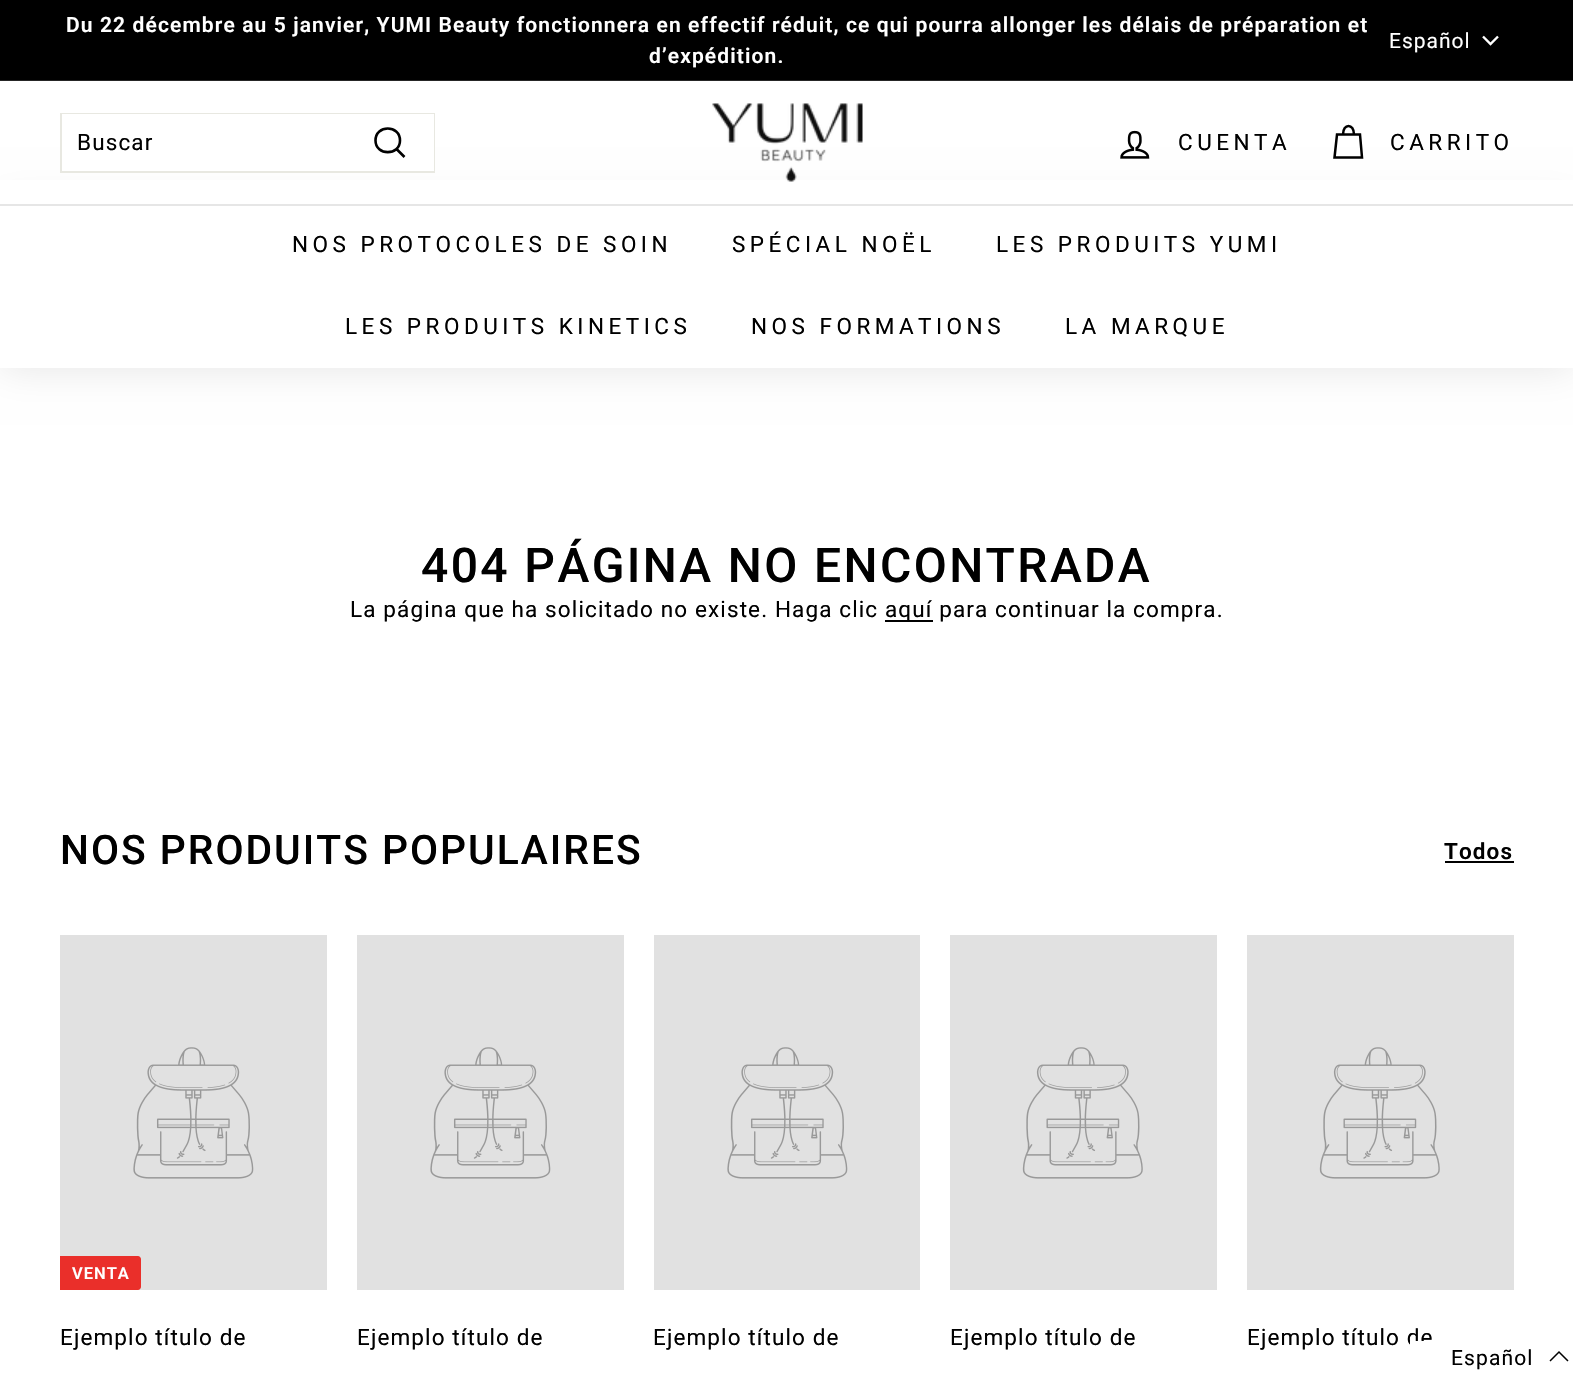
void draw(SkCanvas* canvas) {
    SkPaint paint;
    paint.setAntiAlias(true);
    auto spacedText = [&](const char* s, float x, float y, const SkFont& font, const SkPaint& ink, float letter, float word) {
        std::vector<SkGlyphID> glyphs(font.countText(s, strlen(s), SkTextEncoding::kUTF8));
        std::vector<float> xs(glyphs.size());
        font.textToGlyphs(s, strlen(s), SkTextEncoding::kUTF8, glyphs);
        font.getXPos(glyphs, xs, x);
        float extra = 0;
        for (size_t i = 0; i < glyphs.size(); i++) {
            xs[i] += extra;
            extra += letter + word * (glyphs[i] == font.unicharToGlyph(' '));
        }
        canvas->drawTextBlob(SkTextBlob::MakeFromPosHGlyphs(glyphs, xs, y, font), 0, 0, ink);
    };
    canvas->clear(0xFFFFFFFF);
    paint.setColor(0xFF000000);
    canvas->drawRect(SkRect::MakeXYWH(0, 0, 1573, 81), paint);
    SkFont font1(fontMgr->matchFamilyStyle("Roboto", SkFontStyle(600, SkFontStyle::kNormal_Width, SkFontStyle::kUpright_Slant)), 21);
    font1.setSubpixel(true);
    paint.setColor(0xFFFFFFFF);
    spacedText("Du 22 décembre au 5 janvier, YUMI Beauty fonctionnera en effectif réduit, ce qui pourra allonger les délais de préparation et", 66, 32, font1, paint, 1.12f, 0);
    spacedText("d’expédition.", 649, 63, font1, paint, 1.12f, 0);
    SkFont font2(fontMgr->matchFamilyStyle("Roboto", SkFontStyle::Normal()), 21);
    font2.setSubpixel(true);
    spacedText("Español", 1389, 48, font2, paint, 1, 0);
    paint.setStyle(SkPaint::kStroke_Style);
    paint.setStrokeWidth(2.4f);
    canvas->drawPath(SkPathBuilder().moveTo(1483, 36.5f).lineTo(1490.5f, 44).lineTo(1498, 36.5f).detach(), paint);
    paint.setStyle(SkPaint::kFill_Style);
    paint.setColor(0x26FFFFFF);
    canvas->drawRect(SkRect::MakeXYWH(0, 80, 1573, 1), paint);
    paint.setColor(0x1A000000);
    paint.setMaskFilter(SkMaskFilter::MakeBlur(kNormal_SkBlurStyle, 19));
    canvas->drawRect(SkRect::MakeXYWH(0, 204, 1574, 164), paint);
    paint.setMaskFilter(nullptr);
    paint.setColor(0xFFFFFFFF);
    canvas->drawRect(SkRect::MakeXYWH(0, 180, 1573, 24), paint);
    paint.setStyle(SkPaint::kStroke_Style);
    paint.setStrokeWidth(2);
    paint.setColor(0xFFE8E8E1);
    canvas->drawRect(SkRect::MakeXYWH(61, 114, 373, 58), paint);
    paint.setStyle(SkPaint::kFill_Style);
    paint.setColor(0xFFFFFFFF);
    canvas->drawRect(SkRect::MakeXYWH(62, 114, 372, 57), paint);
    SkFont font3(fontMgr->matchFamilyStyle("Roboto", SkFontStyle::Normal()), 22.5f);
    font3.setSubpixel(true);
    paint.setColor(0xFF000000);
    spacedText("Buscar", 77, 150, font3, paint, 1.12f, 0);
    paint.setStyle(SkPaint::kStroke_Style);
    paint.setStrokeWidth(2.6f);
    canvas->drawPath(SkPathBuilder().moveTo(400, 140.5f).cubicTo(400, 156, 375.5f, 156, 375.5f, 140.5f).cubicTo(375.5f, 124.5f, 400, 124.5f, 400, 140.5f).close().moveTo(404.5f, 157).lineTo(396.5f, 149).detach(), paint);
    canvas->drawImageRect(SkImages::DeferredFromEncodedData(SkData::MakeFromFileName("img1.png")), SkRect::MakeXYWH(712, 103, 151, 79), SkSamplingOptions());
    canvas->drawImageRect(SkImages::DeferredFromEncodedData(SkData::MakeFromFileName("img2.png")), SkRect::MakeXYWH(1120, 130, 30, 29), SkSamplingOptions());
    paint.setStyle(SkPaint::kFill_Style);
    spacedText("CUENTA", 1178, 150, font3, paint, 4.5f, 0);
    paint.setStyle(SkPaint::kStroke_Style);
    paint.setStrokeWidth(2.5f);
    canvas->drawPath(SkPathBuilder().moveTo(1343, 134.5f).cubicTo(1343, 123, 1354, 123, 1354, 134.5f).moveTo(1337, 134.5f).lineTo(1360, 134.5f).lineTo(1362, 157.5f).lineTo(1334.5f, 157.5f).close().detach(), paint);
    paint.setStyle(SkPaint::kFill_Style);
    spacedText("CARRITO", 1390, 150, font3, paint, 4.5f, 0);
    paint.setColor(0xFFFFFFFF);
    canvas->drawRect(SkRect::MakeXYWH(0, 206, 1573, 162), paint);
    paint.setColor(0xFFE6E6E6);
    canvas->drawRect(SkRect::MakeXYWH(0, 204, 1573, 2), paint);
    paint.setColor(0xFF000000);
    spacedText("NOS PROTOCOLES DE SOIN", 292, 252, font3, paint, 4.5f, 0);
    spacedText("SPÉCIAL NOËL", 732, 252, font3, paint, 4.5f, 0);
    spacedText("LES PRODUITS YUMI", 996, 252, font3, paint, 4.5f, 0);
    spacedText("LES PRODUITS KINETICS", 345, 334, font3, paint, 4.5f, 0);
    spacedText("NOS FORMATIONS", 751, 334, font3, paint, 4.5f, 0);
    spacedText("LA MARQUE", 1065, 334, font3, paint, 4.5f, 0);
    SkFont font4(fontMgr->matchFamilyStyle("Roboto", SkFontStyle(500, SkFontStyle::kNormal_Width, SkFontStyle::kUpright_Slant)), 48);
    font4.setSubpixel(true);
    spacedText("404 PÁGINA NO ENCONTRADA", 421, 582, font4, paint, 2.4f, 0);
    spacedText("La página que ha solicitado no existe. Haga clic", 350, 617, font3, paint, 1.12f, 0);
    canvas->drawRect(SkRect::MakeXYWH(885, 620, 48, 2), paint);
    spacedText("aquí para continuar la compra.", 885, 617, font3, paint, 1.12f, 0);
    SkFont font5(fontMgr->matchFamilyStyle("Roboto", SkFontStyle(500, SkFontStyle::kNormal_Width, SkFontStyle::kUpright_Slant)), 40.75f);
    font5.setSubpixel(true);
    spacedText("NOS PRODUITS POPULAIRES", 60, 864, font5, paint, 2, 0);
    SkFont font6(fontMgr->matchFamilyStyle("Roboto", SkFontStyle(600, SkFontStyle::kNormal_Width, SkFontStyle::kUpright_Slant)), 22.5f);
    font6.setSubpixel(true);
    spacedText("Todos", 1444, 859, font6, paint, 1.12f, 0);
    canvas->drawRect(SkRect::MakeXYWH(1445, 861, 69, 2), paint);
    paint.setColor(0xFFE1E1E1);
    canvas->drawRect(SkRect::MakeXYWH(60, 935, 267, 355), paint);
    canvas->drawImageRect(SkImages::DeferredFromEncodedData(SkData::MakeFromFileName("img3.png")), SkRect::MakeXYWH(133, 1047, 121, 132), SkSamplingOptions());
    paint.setColor(0xFFEA2F2A);
    canvas->drawPath(SkPathBuilder().moveTo(60, 1256).lineTo(138, 1256).cubicTo(139.5f, 1256, 141, 1257.5f, 141, 1259).lineTo(141, 1287).cubicTo(141, 1288.5f, 139.5f, 1290, 138, 1290).lineTo(60, 1290).close().detach(), paint);
    SkFont font7(fontMgr->matchFamilyStyle("Roboto", SkFontStyle(600, SkFontStyle::kNormal_Width, SkFontStyle::kUpright_Slant)), 16.5f);
    font7.setSubpixel(true);
    paint.setColor(0xFFFFFFFF);
    spacedText("VENTA", 72, 1279, font7, paint, 1, 0);
    paint.setColor(0xFF000000);
    spacedText("Ejemplo título de", 60, 1345, font3, paint, 1.12f, 0);
    paint.setColor(0xFFE1E1E1);
    canvas->drawRect(SkRect::MakeXYWH(357, 935, 267, 355), paint);
    canvas->drawImageRect(SkImages::DeferredFromEncodedData(SkData::MakeFromFileName("img3.png")), SkRect::MakeXYWH(430, 1047, 121, 132), SkSamplingOptions());
    paint.setColor(0xFF000000);
    spacedText("Ejemplo título de", 357, 1345, font3, paint, 1.12f, 0);
    paint.setColor(0xFFE1E1E1);
    canvas->drawRect(SkRect::MakeXYWH(654, 935, 266, 355), paint);
    canvas->drawImageRect(SkImages::DeferredFromEncodedData(SkData::MakeFromFileName("img3.png")), SkRect::MakeXYWH(727, 1047, 121, 132), SkSamplingOptions());
    paint.setColor(0xFF000000);
    spacedText("Ejemplo título de", 653, 1345, font3, paint, 1.12f, 0);
    paint.setColor(0xFFE1E1E1);
    canvas->drawRect(SkRect::MakeXYWH(950, 935, 267, 355), paint);
    canvas->drawImageRect(SkImages::DeferredFromEncodedData(SkData::MakeFromFileName("img4.png")), SkRect::MakeXYWH(1022, 1047, 121, 132), SkSamplingOptions());
    paint.setColor(0xFF000000);
    spacedText("Ejemplo título de", 950, 1345, font3, paint, 1.12f, 0);
    paint.setColor(0xFFE1E1E1);
    canvas->drawRect(SkRect::MakeXYWH(1247, 935, 267, 355), paint);
    canvas->drawImageRect(SkImages::DeferredFromEncodedData(SkData::MakeFromFileName("img4.png")), SkRect::MakeXYWH(1319, 1047, 121, 132), SkSamplingOptions());
    paint.setColor(0xFF000000);
    spacedText("Ejemplo título de", 1247, 1345, font3, paint, 1.12f, 0);
    paint.setColor(0xFFFFFFFF);
    canvas->drawRect(SkRect::MakeXYWH(1410, 1341, 22, 5), paint);
    paint.setColor(0xFF000000);
    spacedText("Español", 1451, 1365, font2, paint, 1.12f, 0);
    paint.setStyle(SkPaint::kStroke_Style);
    paint.setStrokeWidth(1.5f);
    canvas->drawPath(SkPathBuilder().moveTo(1568, 1361).lineTo(1559, 1352).lineTo(1550, 1361).detach(), paint);
}
